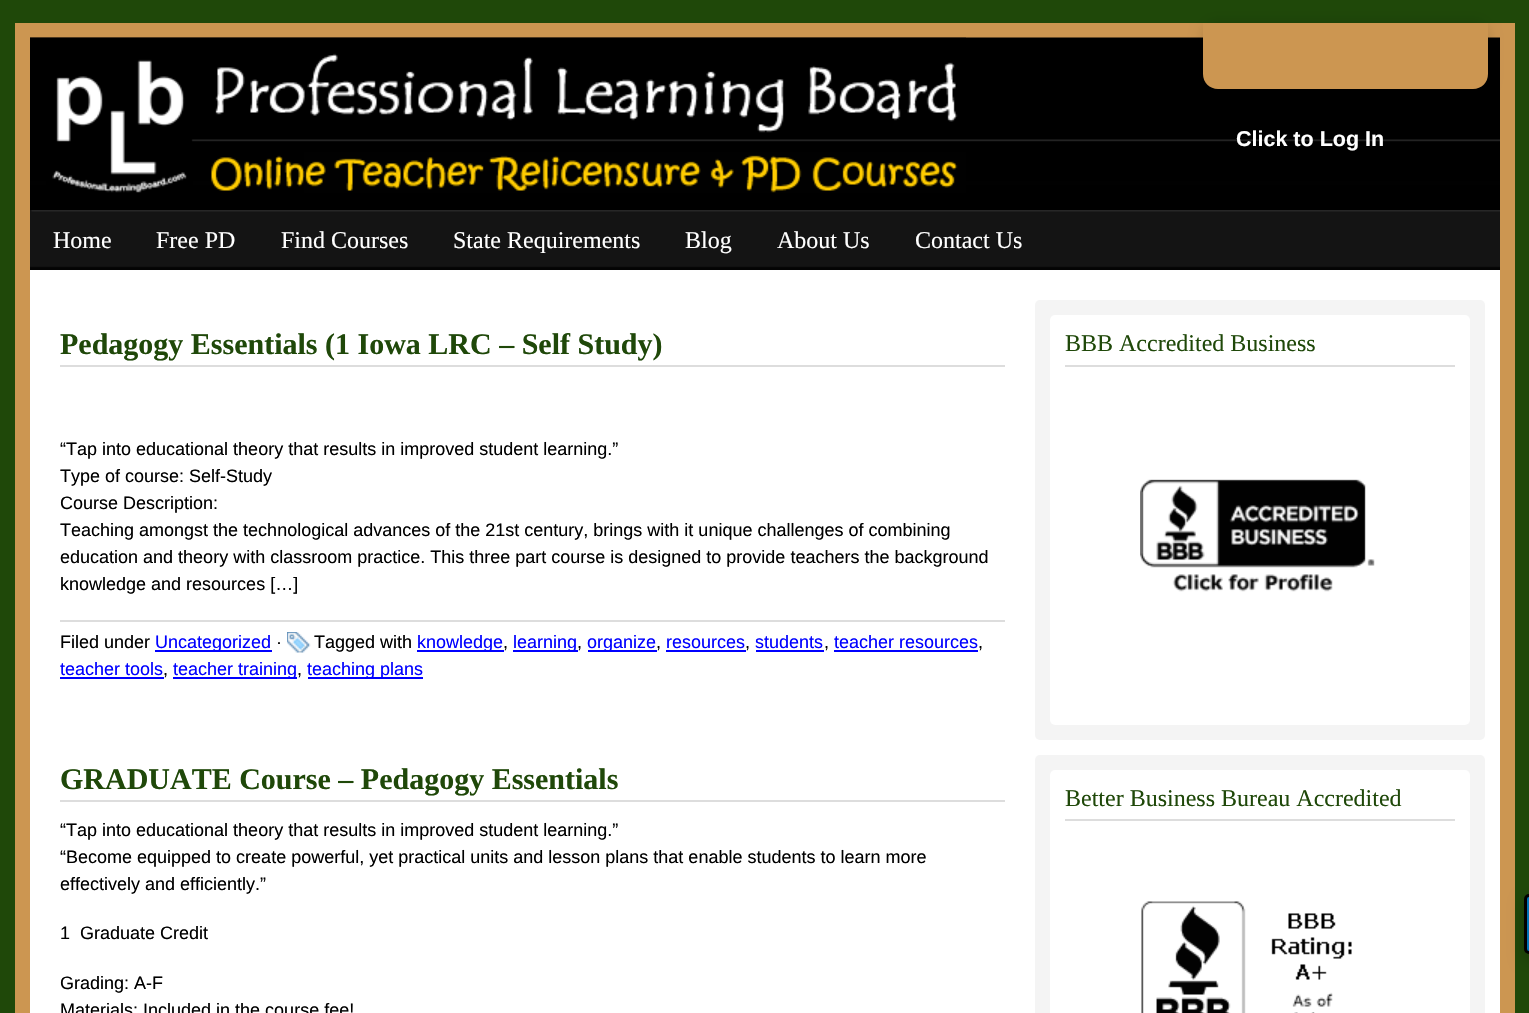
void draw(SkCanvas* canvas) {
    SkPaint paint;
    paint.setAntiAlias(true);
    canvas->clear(0xFF1F4809);
    paint.setColor(0xFFFFFFFF);
    canvas->drawRect(SkRect::MakeXYWH(30, 270, 1470, 743), paint);
    paint.setStyle(SkPaint::kStroke_Style);
    paint.setStrokeWidth(15);
    paint.setColor(0xFFCC9651);
    canvas->drawRect(SkRect::MakeXYWH(22.5f, 30.5f, 1485, 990), paint);
    canvas->drawImageRect(SkImages::DeferredFromEncodedData(SkData::MakeFromFileName("img1.png")), SkRect::MakeXYWH(30, 37, 1470, 173), SkSamplingOptions());
    paint.setStyle(SkPaint::kFill_Style);
    paint.setColor(0x26000000);
    paint.setMaskFilter(SkMaskFilter::MakeBlur(kNormal_SkBlurStyle, 7));
    canvas->drawRoundRect(SkRect::MakeXYWH(1203, 23, 285, 66), 15, 15, paint);
    paint.setMaskFilter(nullptr);
    paint.setColor(0xFFCC9651);
    canvas->drawPath(SkPathBuilder().moveTo(1203, 23).lineTo(1488, 23).lineTo(1488, 74).cubicTo(1488, 82.5f, 1481.5f, 89, 1473, 89).lineTo(1218, 89).cubicTo(1209.5f, 89, 1203, 82.5f, 1203, 74).close().detach(), paint);
    SkFont font1(fontMgr->matchFamilyStyle("Liberation Sans", SkFontStyle::Bold()), 21.5f);
    font1.setSubpixel(true);
    paint.setColor(0xFFFFFFFF);
    canvas->drawString("Click to Log In", 1236, 146, font1, paint);
    canvas->drawImageRect(SkImages::DeferredFromEncodedData(SkData::MakeFromFileName("img2.png")), SkRect::MakeXYWH(30, 37, 936, 156), SkSamplingOptions());
    canvas->drawImageRect(SkImages::DeferredFromEncodedData(SkData::MakeFromFileName("img3.png")), SkRect::MakeXYWH(30, 210, 1470, 60), SkSamplingOptions());
    SkFont font2(fontMgr->matchFamilyStyle("Liberation Serif", SkFontStyle::Normal()), 24);
    font2.setSubpixel(true);
    canvas->drawString("Home", 53, 248, font2, paint);
    canvas->drawString("Free PD", 156, 248, font2, paint);
    canvas->drawString("Find Courses", 281, 248, font2, paint);
    canvas->drawString("State Requirements", 453, 248, font2, paint);
    canvas->drawString("Blog", 685, 248, font2, paint);
    canvas->drawString("About Us", 777, 248, font2, paint);
    canvas->drawString("Contact Us", 915, 248, font2, paint);
    paint.setColor(0xFFDDDDDD);
    canvas->drawRect(SkRect::MakeXYWH(60, 365, 945, 2), paint);
    SkFont font3(fontMgr->matchFamilyStyle("Liberation Serif", SkFontStyle::Bold()), 30);
    font3.setSubpixel(true);
    paint.setColor(0xFF1F4809);
    canvas->drawString("Pedagogy Essentials (1 Iowa LRC – Self Study)", 60, 354, font3, paint);
    SkFont font4(fontMgr->matchFamilyStyle("Liberation Sans", SkFontStyle::Normal()), 18);
    font4.setSubpixel(true);
    paint.setColor(0xFF000000);
    canvas->drawString("“Tap into educational theory that results in improved student learning.”", 60, 455, font4, paint);
    canvas->drawString("Type of course: Self-Study", 60, 482, font4, paint);
    canvas->drawString("Course Description:", 60, 509, font4, paint);
    canvas->drawString("Teaching amongst the technological advances of the 21st century, brings with it unique challenges of combining", 60, 536, font4, paint);
    canvas->drawString("education and theory with classroom practice. This three part course is designed to provide teachers the background", 60, 563, font4, paint);
    canvas->drawString("knowledge and resources […]", 60, 590, font4, paint);
    paint.setColor(0xFFDDDDDD);
    canvas->drawRect(SkRect::MakeXYWH(60, 620, 945, 2), paint);
    paint.setColor(0xFF000000);
    canvas->drawString("Filed under", 60, 648, font4, paint);
    paint.setColor(0xFF0000FF);
    canvas->drawRect(SkRect::MakeXYWH(155, 650, 117, 2), paint);
    canvas->drawString("Uncategorized", 155, 648, font4, paint);
    paint.setColor(0xFF000000);
    canvas->drawString("·", 276, 648, font4, paint);
    canvas->drawImageRect(SkImages::DeferredFromEncodedData(SkData::MakeFromFileName("img4.png")), SkRect::MakeXYWH(287, 632, 24, 21), SkSamplingOptions());
    canvas->drawString("Tagged with", 314, 648, font4, paint);
    paint.setColor(0xFF0000FF);
    canvas->drawRect(SkRect::MakeXYWH(417, 650, 87, 2), paint);
    canvas->drawString("knowledge", 417, 648, font4, paint);
    canvas->drawRect(SkRect::MakeXYWH(513, 650, 65, 2), paint);
    canvas->drawString("learning", 513, 648, font4, paint);
    canvas->drawRect(SkRect::MakeXYWH(588, 650, 69, 2), paint);
    canvas->drawString("organize", 587, 648, font4, paint);
    canvas->drawString("resources", 666, 648, font4, paint);
    canvas->drawString("students", 755, 648, font4, paint);
    canvas->drawString("teacher resources", 834, 648, font4, paint);
    paint.setColor(0xFF000000);
    canvas->drawString(",", 503, 648, font4, paint);
    canvas->drawString(",", 577, 648, font4, paint);
    canvas->drawString(",", 656, 648, font4, paint);
    canvas->drawString(",", 745, 648, font4, paint);
    paint.setColor(0xFF0000FF);
    canvas->drawRect(SkRect::MakeXYWH(666, 650, 80, 2), paint);
    paint.setColor(0xFF000000);
    canvas->drawString(",", 824, 648, font4, paint);
    paint.setColor(0xFF0000FF);
    canvas->drawRect(SkRect::MakeXYWH(756, 650, 68, 2), paint);
    paint.setColor(0xFF000000);
    canvas->drawString(",", 978, 648, font4, paint);
    paint.setColor(0xFF0000FF);
    canvas->drawRect(SkRect::MakeXYWH(834, 650, 144, 2), paint);
    canvas->drawString("teacher tools", 60, 675, font4, paint);
    paint.setColor(0xFF000000);
    canvas->drawString(",", 163, 675, font4, paint);
    paint.setColor(0xFF0000FF);
    canvas->drawRect(SkRect::MakeXYWH(60, 677, 104, 2), paint);
    canvas->drawRect(SkRect::MakeXYWH(173, 677, 124, 2), paint);
    canvas->drawString("teacher training", 173, 675, font4, paint);
    paint.setColor(0xFF000000);
    canvas->drawString(",", 297, 675, font4, paint);
    paint.setColor(0xFF0000FF);
    canvas->drawRect(SkRect::MakeXYWH(308, 677, 115, 2), paint);
    canvas->drawString("teaching plans", 307, 675, font4, paint);
    paint.setColor(0xFFDDDDDD);
    canvas->drawRect(SkRect::MakeXYWH(60, 800, 945, 2), paint);
    paint.setColor(0xFF1F4809);
    canvas->drawString("GRADUATE Course – Pedagogy Essentials", 60, 789, font3, paint);
    paint.setColor(0xFF000000);
    canvas->drawString("“Tap into educational theory that results in improved student learning.”", 60, 836, font4, paint);
    canvas->drawString("“Become equipped to create powerful, yet practical units and lesson plans that enable students to learn more", 60, 863, font4, paint);
    canvas->drawString("effectively and efficiently.”", 60, 890, font4, paint);
    canvas->drawString("1  Graduate Credit", 60, 939, font4, paint);
    canvas->drawString("Grading: A-F", 60, 989, font4, paint);
    canvas->drawString("Materials: Included in the course fee!", 60, 1016, font4, paint);
    paint.setColor(0xFFF4F4F4);
    canvas->drawRoundRect(SkRect::MakeXYWH(1035, 300, 450, 440), 5, 5, paint);
    paint.setColor(0xFFFFFFFF);
    canvas->drawRoundRect(SkRect::MakeXYWH(1050, 315, 420, 410), 5, 5, paint);
    paint.setColor(0xFFDDDDDD);
    canvas->drawRect(SkRect::MakeXYWH(1065, 365, 390, 2), paint);
    paint.setColor(0xFF1F4809);
    canvas->drawString("BBB Accredited Business", 1065, 351, font2, paint);
    canvas->drawImageRect(SkImages::DeferredFromEncodedData(SkData::MakeFromFileName("img5.png")), SkRect::MakeXYWH(1140, 479, 235, 113), SkSamplingOptions());
    paint.setColor(0xFFF4F4F4);
    canvas->drawRoundRect(SkRect::MakeXYWH(1035, 755, 450, 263), 5, 5, paint);
    paint.setColor(0xFFFFFFFF);
    canvas->drawRoundRect(SkRect::MakeXYWH(1050, 770, 420, 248), 5, 5, paint);
    paint.setColor(0xFFDDDDDD);
    canvas->drawRect(SkRect::MakeXYWH(1065, 819, 390, 2), paint);
    paint.setColor(0xFF1F4809);
    canvas->drawString("Better Business Bureau Accredited", 1065, 806, font2, paint);
    canvas->drawImageRect(SkImages::DeferredFromEncodedData(SkData::MakeFromFileName("img6.png")), SkRect::MakeXYWH(1141, 901, 211, 112), SkSamplingOptions());
    paint.setColor(0x33000000);
    paint.setMaskFilter(SkMaskFilter::MakeBlur(kNormal_SkBlurStyle, 7.5f));
    canvas->drawRoundRect(SkRect::MakeXYWH(1524, 900, 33, 60), 5, 5, paint);
    paint.setMaskFilter(nullptr);
    paint.setColor(0xFF0073B7);
    canvas->drawPath(SkPathBuilder().moveTo(1529, 895.5f).lineTo(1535.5f, 895.5f).lineTo(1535.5f, 952.5f).lineTo(1529, 952.5f).cubicTo(1527, 952.5f, 1525.5f, 951, 1525.5f, 949).lineTo(1525.5f, 899).cubicTo(1525.5f, 897, 1527, 895.5f, 1529, 895.5f).close().detach(), paint);
    paint.setStyle(SkPaint::kStroke_Style);
    paint.setStrokeWidth(3);
    paint.setColor(0xFF000000);
    canvas->drawPath(SkPathBuilder().moveTo(1529, 895.5f).lineTo(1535.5f, 895.5f).lineTo(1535.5f, 952.5f).lineTo(1529, 952.5f).cubicTo(1527, 952.5f, 1525.5f, 951, 1525.5f, 949).lineTo(1525.5f, 899).cubicTo(1525.5f, 897, 1527, 895.5f, 1529, 895.5f).close().detach(), paint);
}
